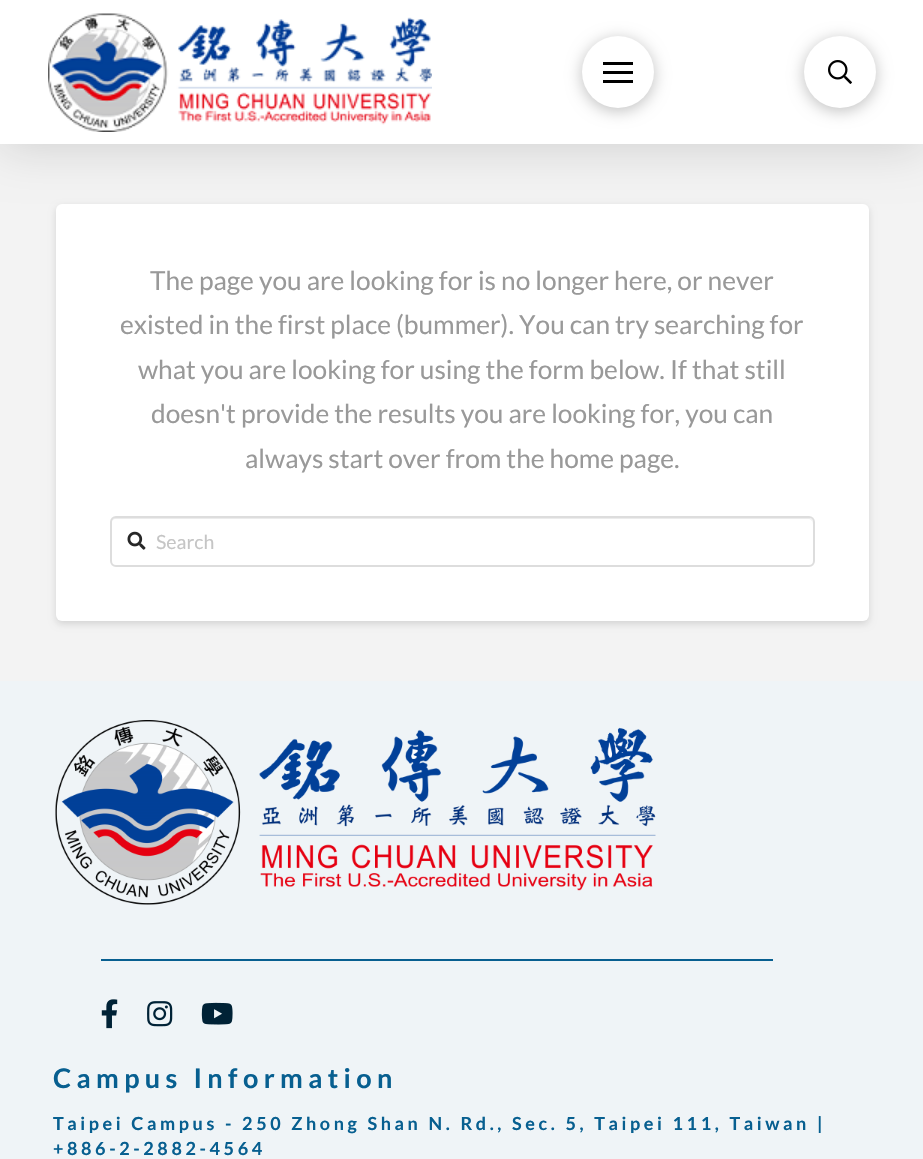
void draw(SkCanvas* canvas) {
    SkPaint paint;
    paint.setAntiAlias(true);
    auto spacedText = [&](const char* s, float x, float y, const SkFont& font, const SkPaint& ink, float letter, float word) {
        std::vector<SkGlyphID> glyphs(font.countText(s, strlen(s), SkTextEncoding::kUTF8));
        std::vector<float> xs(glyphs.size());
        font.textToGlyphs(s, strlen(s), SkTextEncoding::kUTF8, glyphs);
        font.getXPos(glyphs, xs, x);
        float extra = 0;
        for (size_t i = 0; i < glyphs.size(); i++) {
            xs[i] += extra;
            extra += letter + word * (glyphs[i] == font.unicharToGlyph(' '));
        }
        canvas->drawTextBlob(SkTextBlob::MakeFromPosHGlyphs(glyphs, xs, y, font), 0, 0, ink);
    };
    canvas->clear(0xFFF3F3F3);
    paint.setColor(0x21000000);
    paint.setMaskFilter(SkMaskFilter::MakeBlur(kNormal_SkBlurStyle, 3.5f));
    canvas->drawRoundRect(SkRect::MakeXYWH(56, 207, 813, 417), 6, 6, paint);
    paint.setMaskFilter(nullptr);
    paint.setColor(0xFFFFFFFF);
    canvas->drawRoundRect(SkRect::MakeXYWH(56, 204, 813, 417), 6, 6, paint);
    paint.setColor(0x26000000);
    paint.setMaskFilter(SkMaskFilter::MakeBlur(kNormal_SkBlurStyle, 24));
    canvas->drawRect(SkRect::MakeXYWH(0, 3, 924, 144), paint);
    paint.setMaskFilter(nullptr);
    paint.setColor(0xFFFFFFFF);
    canvas->drawRect(SkRect::MakeXYWH(0, 0, 923, 144), paint);
    canvas->drawImageRect(SkImages::DeferredFromEncodedData(SkData::MakeFromFileName("img1.png")), SkRect::MakeXYWH(48, 13, 384, 119), SkSamplingOptions());
    paint.setColor(0x40000000);
    paint.setMaskFilter(SkMaskFilter::MakeBlur(kNormal_SkBlurStyle, 8));
    canvas->drawRoundRect(SkRect::MakeXYWH(582, 39, 72, 72), 36, 36, paint);
    paint.setMaskFilter(nullptr);
    paint.setColor(0xFFFFFFFF);
    canvas->drawCircle(618, 72, 36, paint);
    paint.setColor(0xFF000000);
    canvas->drawRect(SkRect::MakeXYWH(603, 62, 30, 3), paint);
    canvas->drawRect(SkRect::MakeXYWH(603, 71, 30, 3), paint);
    canvas->drawRect(SkRect::MakeXYWH(603, 80, 30, 3), paint);
    paint.setColor(0x40000000);
    paint.setMaskFilter(SkMaskFilter::MakeBlur(kNormal_SkBlurStyle, 8));
    canvas->drawRoundRect(SkRect::MakeXYWH(804, 39, 72, 72), 36, 36, paint);
    paint.setMaskFilter(nullptr);
    paint.setColor(0xFFFFFFFF);
    canvas->drawCircle(840, 72, 36, paint);
    canvas->drawImageRect(SkImages::DeferredFromEncodedData(SkData::MakeFromFileName("img2.png")), SkRect::MakeXYWH(828, 60, 24, 24), SkSamplingOptions());
    SkFont font1(fontMgr->matchFamilyStyle("Lato", SkFontStyle::Normal()), 26.25f);
    font1.setSubpixel(true);
    paint.setColor(0xFF999999);
    canvas->drawString("The page you are looking for is no longer here, or never", 150, 290, font1, paint);
    canvas->drawString("existed in the first place (bummer). You can try searching for", 120, 334, font1, paint);
    canvas->drawString("what you are looking for using the form below. If that still", 138, 379, font1, paint);
    canvas->drawString("doesn't provide the results you are looking for, you can", 151, 423, font1, paint);
    canvas->drawString("always start over from the home page.", 245, 468, font1, paint);
    paint.setColor(0xFFECECEC);
    canvas->drawPath(SkPathBuilder().moveTo(116, 519).lineTo(808, 519).cubicTo(811, 519, 813, 521, 813, 524).lineTo(813, 523).cubicTo(813, 520, 811, 518, 808, 518).lineTo(116, 518).cubicTo(113, 518, 111, 520, 111, 523).lineTo(111, 524).cubicTo(111, 521, 113, 519, 116, 519).close().detach(), paint);
    paint.setStyle(SkPaint::kStroke_Style);
    paint.setStrokeWidth(2);
    paint.setColor(0xFFDDDDDD);
    canvas->drawRoundRect(SkRect::MakeXYWH(111, 517, 703, 49), 5, 5, paint);
    canvas->drawImageRect(SkImages::DeferredFromEncodedData(SkData::MakeFromFileName("img3.png")), SkRect::MakeXYWH(127, 531, 19, 19), SkSamplingOptions());
    SkFont font2(fontMgr->matchFamilyStyle("Lato", SkFontStyle::Normal()), 19.5f);
    font2.setSubpixel(true);
    paint.setStyle(SkPaint::kFill_Style);
    paint.setColor(0xFFC5C5C5);
    canvas->drawString("Search", 156, 549, font2, paint);
    paint.setColor(0xFFEFF4F7);
    canvas->drawRect(SkRect::MakeXYWH(0, 681, 923, 478), paint);
    canvas->drawImageRect(SkImages::DeferredFromEncodedData(SkData::MakeFromFileName("img4.png")), SkRect::MakeXYWH(55, 720, 601, 185), SkSamplingOptions());
    paint.setColor(0xFF075F90);
    canvas->drawRect(SkRect::MakeXYWH(101, 959, 672, 2), paint);
    canvas->drawImageRect(SkImages::DeferredFromEncodedData(SkData::MakeFromFileName("img5.png")), SkRect::MakeXYWH(101, 999, 17, 30), SkSamplingOptions());
    canvas->drawImageRect(SkImages::DeferredFromEncodedData(SkData::MakeFromFileName("img6.png")), SkRect::MakeXYWH(147, 1001, 26, 26), SkSamplingOptions());
    canvas->drawImageRect(SkImages::DeferredFromEncodedData(SkData::MakeFromFileName("img7.png")), SkRect::MakeXYWH(201, 1002, 32, 23), SkSamplingOptions());
    SkFont font3(fontMgr->matchFamilyStyle("Lato", SkFontStyle::Bold()), 27);
    font3.setSubpixel(true);
    spacedText("Campus Information", 53, 1088, font3, paint, 5.4f, 0);
    SkFont font4(fontMgr->matchFamilyStyle("Lato", SkFontStyle::Bold()), 18);
    font4.setSubpixel(true);
    spacedText("Taipei Campus - 250 Zhong Shan N. Rd., Sec. 5, Taipei 111, Taiwan |", 53, 1130, font4, paint, 3.6f, 0);
    spacedText("+886-2-2882-4564", 53, 1155, font4, paint, 3.6f, 0);
}
